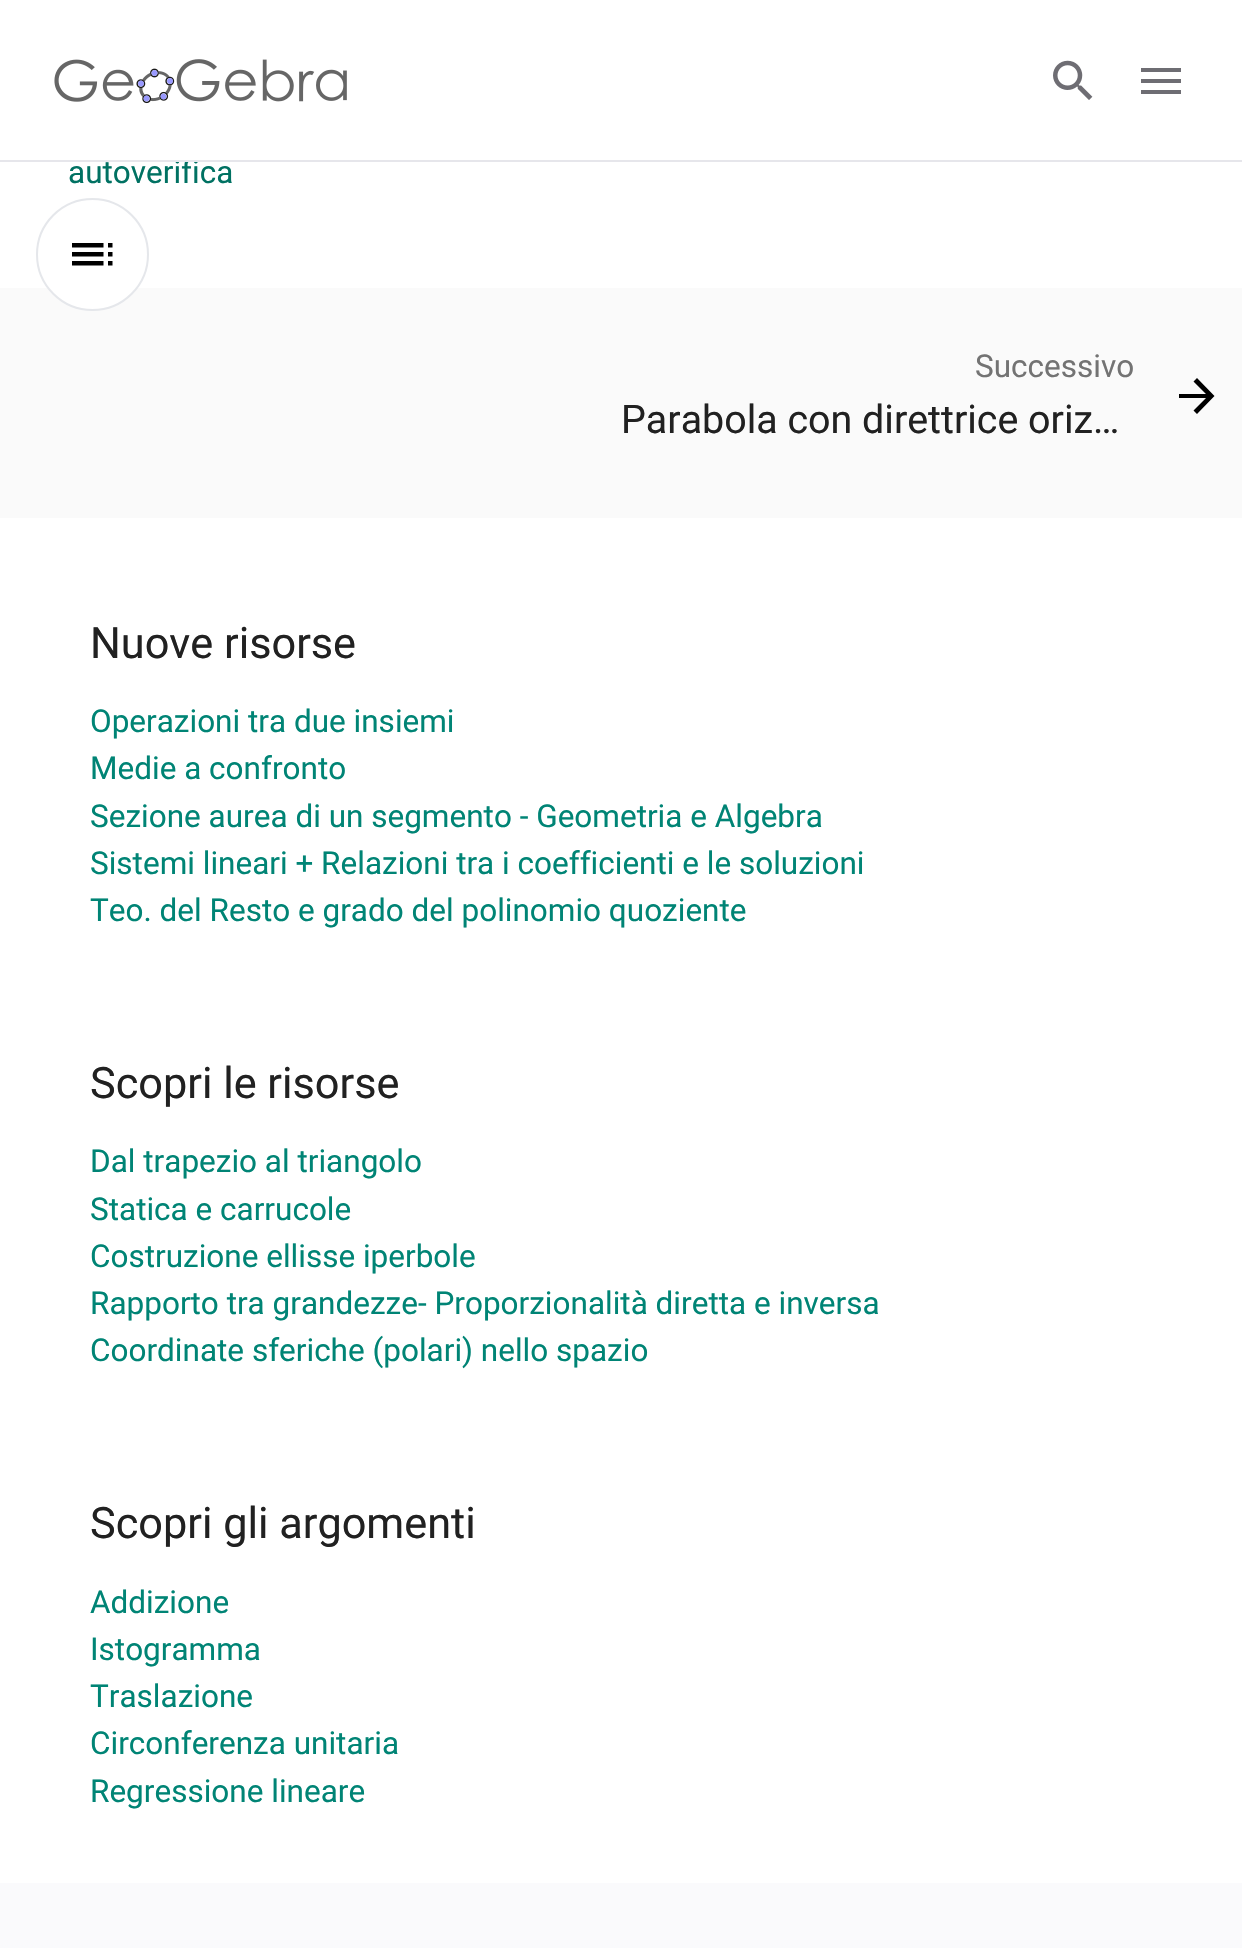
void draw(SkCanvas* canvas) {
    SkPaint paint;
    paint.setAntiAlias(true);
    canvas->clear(0xFFFFFFFF);
    SkFont font1(fontMgr->matchFamilyStyle("Roboto", SkFontStyle::Normal()), 31.5f);
    font1.setSubpixel(true);
    paint.setColor(0xFF007162);
    canvas->drawString("autoverifica", 68, 183, font1, paint);
    paint.setColor(0xFFFFFFFF);
    canvas->drawRect(SkRect::MakeXYWH(186, 159, 8, 1), paint);
    paint.setColor(0xFFE6E6EB);
    canvas->drawRect(SkRect::MakeXYWH(0, 160, 1242, 2), paint);
    canvas->drawImageRect(SkImages::DeferredFromEncodedData(SkData::MakeFromFileName("img1.png")), SkRect::MakeXYWH(54, 59, 293, 45), SkSamplingOptions());
    canvas->drawImageRect(SkImages::DeferredFromEncodedData(SkData::MakeFromFileName("img2.png")), SkRect::MakeXYWH(1053, 60, 40, 40), SkSamplingOptions());
    paint.setColor(0xFF6E6D73);
    canvas->drawPath(SkPathBuilder().moveTo(1141, 68).lineTo(1181, 68).lineTo(1181, 72).lineTo(1141, 72).lineTo(1141, 68).moveTo(1141, 79).lineTo(1181, 79).lineTo(1181, 83).lineTo(1141, 83).lineTo(1141, 79).moveTo(1141, 90).lineTo(1181, 90).lineTo(1181, 94).lineTo(1141, 94).close().detach(), paint);
    paint.setColor(0xFFFAFAFA);
    canvas->drawRect(SkRect::MakeXYWH(0, 288, 1242, 230), paint);
    paint.setColor(0xFF737373);
    canvas->drawString("Successivo", 975, 377, font1, paint);
    paint.setColor(0xFF000000);
    canvas->drawPath(SkPathBuilder().moveTo(1179, 394).lineTo(1179, 398).lineTo(1206, 398).lineTo(1193.5f, 410.5f).lineTo(1197, 414).lineTo(1214.5f, 396).lineTo(1197, 378).lineTo(1193.5f, 381.5f).lineTo(1206, 394).close().detach(), paint);
    SkFont font2(fontMgr->matchFamilyStyle("Roboto", SkFontStyle::Normal()), 39.4f);
    font2.setSubpixel(true);
    paint.setColor(0xFF212121);
    canvas->drawString("Parabola con direttrice oriz…", 621, 433, font2, paint);
    SkFont font3(fontMgr->matchFamilyStyle("Roboto", SkFontStyle::Normal()), 43.25f);
    font3.setSubpixel(true);
    canvas->drawString("Nuove risorse", 90, 658, font3, paint);
    paint.setColor(0xFF008475);
    canvas->drawString("Operazioni tra due insiemi", 90, 732, font1, paint);
    canvas->drawString("Medie a confronto", 90, 779, font1, paint);
    canvas->drawString("Sezione aurea di un segmento - Geometria e Algebra", 90, 827, font1, paint);
    canvas->drawString("Sistemi lineari + Relazioni tra i coefficienti e le soluzioni", 90, 874, font1, paint);
    canvas->drawString("Teo. del Resto e grado del polinomio quoziente", 90, 921, font1, paint);
    paint.setColor(0xFF212121);
    canvas->drawString("Scopri le risorse", 90, 1098, font3, paint);
    paint.setColor(0xFF008475);
    canvas->drawString("Dal trapezio al triangolo", 90, 1172, font1, paint);
    canvas->drawString("Statica e carrucole", 90, 1220, font1, paint);
    canvas->drawString("Costruzione ellisse iperbole", 90, 1267, font1, paint);
    canvas->drawString("Rapporto tra grandezze- Proporzionalità diretta e inversa", 90, 1314, font1, paint);
    canvas->drawString("Coordinate sferiche (polari) nello spazio", 90, 1361, font1, paint);
    paint.setColor(0xFF212121);
    canvas->drawString("Scopri gli argomenti", 90, 1538, font3, paint);
    paint.setColor(0xFF008475);
    canvas->drawString("Addizione", 90, 1613, font1, paint);
    canvas->drawString("Istogramma", 90, 1660, font1, paint);
    canvas->drawString("Traslazione", 90, 1707, font1, paint);
    canvas->drawString("Circonferenza unitaria", 90, 1754, font1, paint);
    canvas->drawString("Regressione lineare", 90, 1802, font1, paint);
    paint.setColor(0xFFFAFAFC);
    canvas->drawRect(SkRect::MakeXYWH(0, 1883, 1242, 65), paint);
    paint.setColor(0xFFFFFFFF);
    canvas->drawCircle(92.5f, 254.5f, 55.5f, paint);
    paint.setStyle(SkPaint::kStroke_Style);
    paint.setStrokeWidth(2);
    paint.setColor(0xFFE5E7EB);
    canvas->drawCircle(92.5f, 254.5f, 55.5f, paint);
    canvas->drawImageRect(SkImages::DeferredFromEncodedData(SkData::MakeFromFileName("img3.png")), SkRect::MakeXYWH(72, 243, 41, 23), SkSamplingOptions());
}
